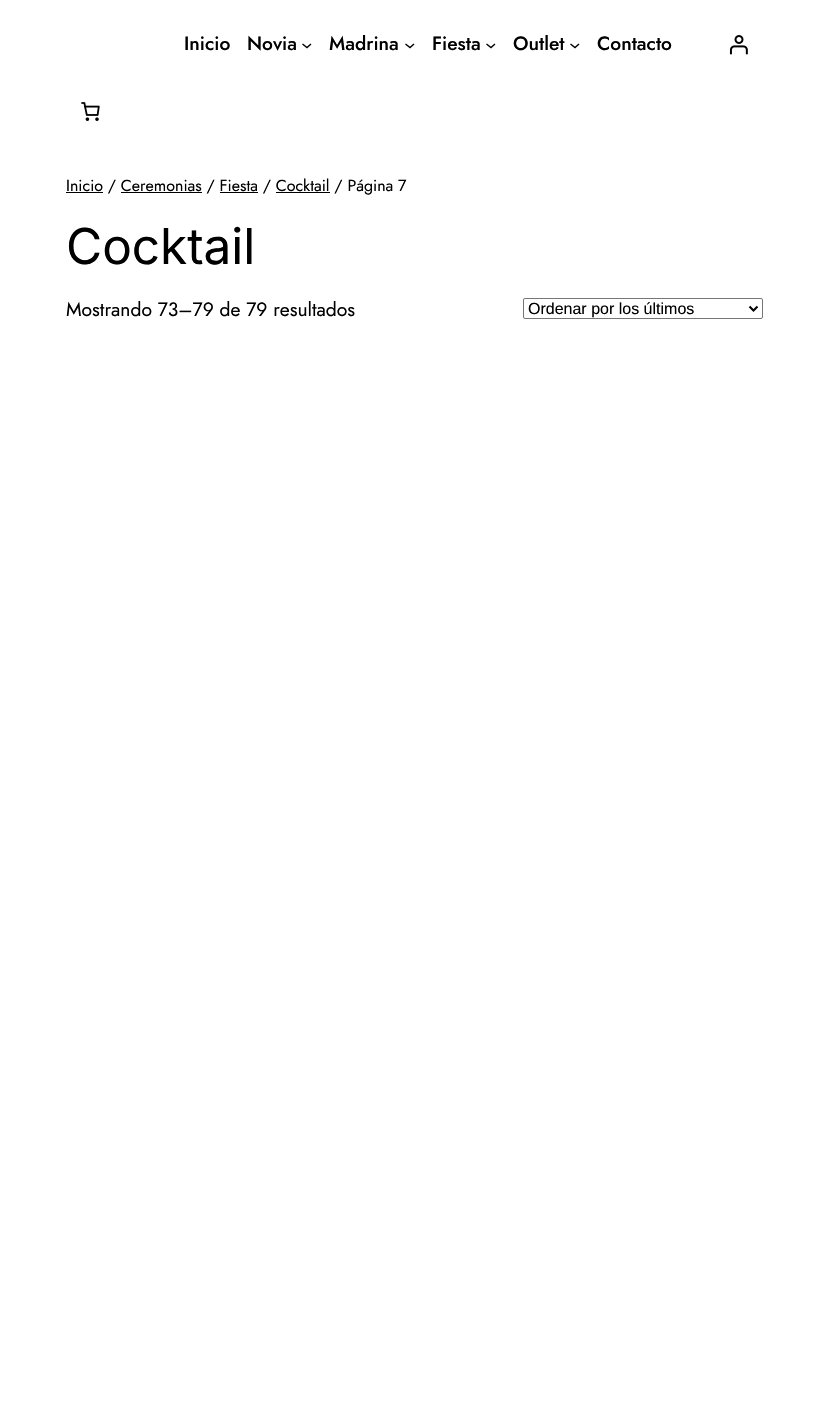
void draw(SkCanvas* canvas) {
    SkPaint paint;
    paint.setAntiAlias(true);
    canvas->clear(0xFFFFFFFF);
    SkFont font1(fontMgr->matchFamilyStyle("Jost", SkFontStyle(500, SkFontStyle::kNormal_Width, SkFontStyle::kUpright_Slant)), 19.25f);
    font1.setSubpixel(true);
    paint.setColor(0xFF000000);
    canvas->drawString("Inicio", 184, 50, font1, paint);
    canvas->drawString("Novia", 247, 50, font1, paint);
    paint.setStyle(SkPaint::kStroke_Style);
    paint.setStrokeWidth(1.4f);
    canvas->drawPath(SkPathBuilder().moveTo(302.5f, 44).lineTo(307, 47.5f).lineTo(311, 44).detach(), paint);
    paint.setStyle(SkPaint::kFill_Style);
    canvas->drawString("Madrina", 329, 50, font1, paint);
    paint.setStyle(SkPaint::kStroke_Style);
    canvas->drawPath(SkPathBuilder().moveTo(405.5f, 44).lineTo(410, 47.5f).lineTo(414, 44).detach(), paint);
    paint.setStyle(SkPaint::kFill_Style);
    canvas->drawString("Fiesta", 432, 50, font1, paint);
    paint.setStyle(SkPaint::kStroke_Style);
    canvas->drawPath(SkPathBuilder().moveTo(486.5f, 44).lineTo(491, 47.5f).lineTo(495, 44).detach(), paint);
    paint.setStyle(SkPaint::kFill_Style);
    canvas->drawString("Outlet", 513, 50, font1, paint);
    paint.setStyle(SkPaint::kStroke_Style);
    canvas->drawPath(SkPathBuilder().moveTo(570.5f, 44).lineTo(575, 47.5f).lineTo(579, 44).detach(), paint);
    paint.setStyle(SkPaint::kFill_Style);
    canvas->drawString("Contacto", 597, 50, font1, paint);
    canvas->drawImageRect(SkImages::DeferredFromEncodedData(SkData::MakeFromFileName("img1.png")), SkRect::MakeXYWH(729, 35, 19, 20), SkSamplingOptions());
    canvas->drawImageRect(SkImages::DeferredFromEncodedData(SkData::MakeFromFileName("img2.png")), SkRect::MakeXYWH(81, 102, 19, 19), SkSamplingOptions());
    canvas->drawRect(SkRect::MakeXYWH(66, 192, 37, 1), paint);
    SkFont font2(fontMgr->matchFamilyStyle("Jost", SkFontStyle::Normal()), 16);
    font2.setSubpixel(true);
    canvas->drawString("Inicio / Ceremonias / Fiesta / Cocktail / Página 7", 66, 191, font2, paint);
    canvas->drawRect(SkRect::MakeXYWH(121, 192, 81, 1), paint);
    canvas->drawRect(SkRect::MakeXYWH(220, 192, 38, 1), paint);
    canvas->drawRect(SkRect::MakeXYWH(276, 192, 54, 1), paint);
    SkFont font3(fontMgr->matchFamilyStyle("Inter", SkFontStyle::Normal()), 49.5f);
    font3.setSubpixel(true);
    canvas->drawString("Cocktail", 66, 264, font3, paint);
    SkFont font4(fontMgr->matchFamilyStyle("Jost", SkFontStyle::Normal()), 19.25f);
    font4.setSubpixel(true);
    canvas->drawString("Mostrando 73–79 de 79 resultados", 66, 316, font4, paint);
    paint.setStyle(SkPaint::kStroke_Style);
    paint.setStrokeWidth(1);
    paint.setColor(0xFF767676);
    canvas->drawRoundRect(SkRect::MakeXYWH(523.5f, 298.5f, 239, 20), 1.5f, 1.5f, paint);
    paint.setStrokeWidth(2);
    paint.setColor(0xFF000000);
    canvas->drawPath(SkPathBuilder().moveTo(749.5f, 306.5f).lineTo(753.5f, 310.5f).lineTo(757.5f, 306.5f).detach(), paint);
    SkFont font5(fontMgr->matchFamilyStyle("Liberation Sans", SkFontStyle::Normal()), 16);
    font5.setSubpixel(true);
    paint.setStyle(SkPaint::kFill_Style);
    canvas->drawString("Ordenar por los últimos", 528, 314, font5, paint);
}
